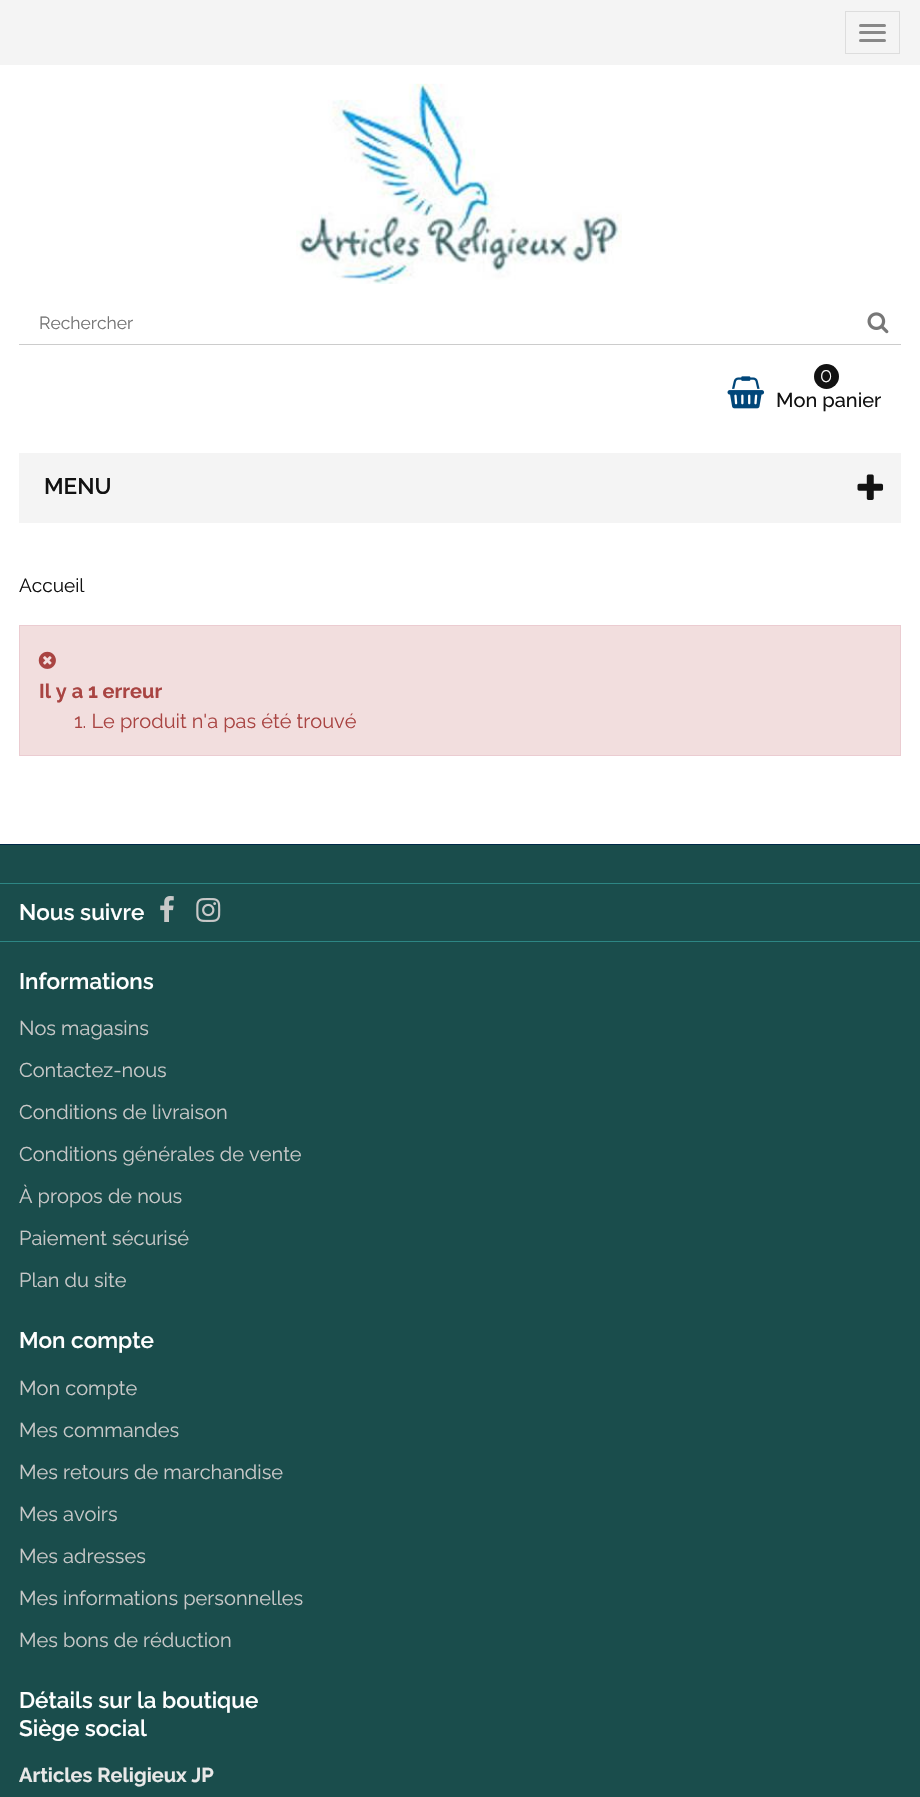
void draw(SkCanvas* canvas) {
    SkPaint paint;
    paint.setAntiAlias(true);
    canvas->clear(0xFFFFFFFF);
    paint.setColor(0xFFF4F4F4);
    canvas->drawRect(SkRect::MakeXYWH(0, 0, 920, 65), paint);
    paint.setStyle(SkPaint::kStroke_Style);
    paint.setStrokeWidth(1);
    paint.setColor(0xFFDDDDDD);
    canvas->drawRect(SkRect::MakeXYWH(845.5f, 11.5f, 54, 42), paint);
    paint.setStyle(SkPaint::kFill_Style);
    paint.setColor(0xFF888888);
    canvas->drawRoundRect(SkRect::MakeXYWH(859, 24, 27, 3), 1.5f, 1.5f, paint);
    canvas->drawRoundRect(SkRect::MakeXYWH(859, 31, 27, 3), 1.5f, 1.5f, paint);
    canvas->drawRoundRect(SkRect::MakeXYWH(859, 39, 27, 3), 1.5f, 1.5f, paint);
    canvas->drawImageRect(SkImages::DeferredFromEncodedData(SkData::MakeFromFileName("img1.png")), SkRect::MakeXYWH(296, 83, 326, 201), SkSamplingOptions());
    paint.setColor(0xFFCCCCCC);
    canvas->drawRect(SkRect::MakeXYWH(19, 344, 882, 1), paint);
    SkFont font1(fontMgr->matchFamilyStyle("Raleway", SkFontStyle::Normal()), 17.5f);
    font1.setSubpixel(true);
    paint.setColor(0xFF757575);
    canvas->drawString("Rechercher", 39, 329, font1, paint);
    canvas->drawImageRect(SkImages::DeferredFromEncodedData(SkData::MakeFromFileName("img2.png")), SkRect::MakeXYWH(867, 312, 22, 22), SkSamplingOptions());
    canvas->drawImageRect(SkImages::DeferredFromEncodedData(SkData::MakeFromFileName("img3.png")), SkRect::MakeXYWH(727, 376, 38, 33), SkSamplingOptions());
    paint.setColor(0xFF121212);
    canvas->drawCircle(826.5f, 376.5f, 12.5f, paint);
    SkFont font2(fontMgr->matchFamilyStyle("Raleway", SkFontStyle(300, SkFontStyle::kNormal_Width, SkFontStyle::kUpright_Slant)), 20);
    font2.setSubpixel(true);
    paint.setColor(0xFFFFFFFF);
    canvas->drawString("0", 820, 382, font2, paint);
    SkFont font3(fontMgr->matchFamilyStyle("Raleway", SkFontStyle(500, SkFontStyle::kNormal_Width, SkFontStyle::kUpright_Slant)), 20);
    font3.setSubpixel(true);
    paint.setColor(0xFF121212);
    canvas->drawString("Mon panier", 776, 407, font3, paint);
    paint.setColor(0xFFF4F4F4);
    canvas->drawRect(SkRect::MakeXYWH(19, 453, 882, 70), paint);
    SkFont font4(fontMgr->matchFamilyStyle("Raleway", SkFontStyle(600, SkFontStyle::kNormal_Width, SkFontStyle::kUpright_Slant)), 22.5f);
    font4.setSubpixel(true);
    paint.setColor(0xFF121212);
    canvas->drawString("MENU", 44, 494, font4, paint);
    canvas->drawImageRect(SkImages::DeferredFromEncodedData(SkData::MakeFromFileName("img4.png")), SkRect::MakeXYWH(857, 474, 27, 26), SkSamplingOptions());
    SkFont font5(fontMgr->matchFamilyStyle("Raleway", SkFontStyle::Normal()), 19);
    font5.setSubpixel(true);
    canvas->drawString("Accueil", 19, 592, font5, paint);
    paint.setColor(0xFFF2DEDE);
    canvas->drawRect(SkRect::MakeXYWH(19.5f, 625.5f, 881, 130), paint);
    paint.setStyle(SkPaint::kStroke_Style);
    paint.setColor(0xFFEBCCD1);
    canvas->drawRect(SkRect::MakeXYWH(19.5f, 625.5f, 881, 130), paint);
    canvas->drawImageRect(SkImages::DeferredFromEncodedData(SkData::MakeFromFileName("img5.png")), SkRect::MakeXYWH(38, 651, 18, 18), SkSamplingOptions());
    SkFont font6(fontMgr->matchFamilyStyle("Raleway", SkFontStyle::Bold()), 20);
    font6.setSubpixel(true);
    paint.setStyle(SkPaint::kFill_Style);
    paint.setColor(0xFFA94442);
    canvas->drawString("Il y a 1 erreur", 39, 698, font6, paint);
    SkFont font7(fontMgr->matchFamilyStyle("Raleway", SkFontStyle::Normal()), 20);
    font7.setSubpixel(true);
    canvas->drawString("1. Le produit n'a pas été trouvé", 74, 728, font7, paint);
    paint.setColor(0xFF1A4D4C);
    canvas->drawRect(SkRect::MakeXYWH(0, 845, 920, 952), paint);
    paint.setColor(0xFF002947);
    canvas->drawRect(SkRect::MakeXYWH(0, 844, 920, 1), paint);
    paint.setColor(0xFF2D8684);
    canvas->drawRect(SkRect::MakeXYWH(0, 883, 920, 1), paint);
    canvas->drawRect(SkRect::MakeXYWH(0, 941, 920, 1), paint);
    paint.setColor(0xFFFFFFFF);
    canvas->drawString("Nous suivre", 19, 920, font4, paint);
    canvas->drawImageRect(SkImages::DeferredFromEncodedData(SkData::MakeFromFileName("img6.png")), SkRect::MakeXYWH(160, 896, 14, 26), SkSamplingOptions());
    canvas->drawImageRect(SkImages::DeferredFromEncodedData(SkData::MakeFromFileName("img7.png")), SkRect::MakeXYWH(196, 898, 25, 24), SkSamplingOptions());
    canvas->drawString("Informations", 19, 989, font4, paint);
    paint.setColor(0xFFC8C8C8);
    canvas->drawString("Nos magasins", 19, 1035, font7, paint);
    canvas->drawString("Contactez-nous", 19, 1077, font7, paint);
    canvas->drawString("Conditions de livraison", 19, 1119, font7, paint);
    canvas->drawString("Conditions générales de vente", 19, 1161, font7, paint);
    canvas->drawString("À propos de nous", 19, 1203, font7, paint);
    canvas->drawString("Paiement sécurisé", 19, 1245, font7, paint);
    canvas->drawString("Plan du site", 19, 1287, font7, paint);
    paint.setColor(0xFFFFFFFF);
    canvas->drawString("Mon compte", 19, 1348, font4, paint);
    paint.setColor(0xFFC8C8C8);
    canvas->drawString("Mon compte", 19, 1395, font7, paint);
    canvas->drawString("Mes commandes", 19, 1437, font7, paint);
    canvas->drawString("Mes retours de marchandise", 19, 1479, font7, paint);
    canvas->drawString("Mes avoirs", 19, 1521, font7, paint);
    canvas->drawString("Mes adresses", 19, 1563, font7, paint);
    canvas->drawString("Mes informations personnelles", 19, 1605, font7, paint);
    canvas->drawString("Mes bons de réduction", 19, 1647, font7, paint);
    paint.setColor(0xFFFFFFFF);
    canvas->drawString("Détails sur la boutique", 19, 1708, font4, paint);
    canvas->drawString("Siège social", 19, 1736, font4, paint);
    paint.setColor(0xFFE8E8E8);
    canvas->drawString("Articles Religieux JP", 19, 1782, font6, paint);
}
